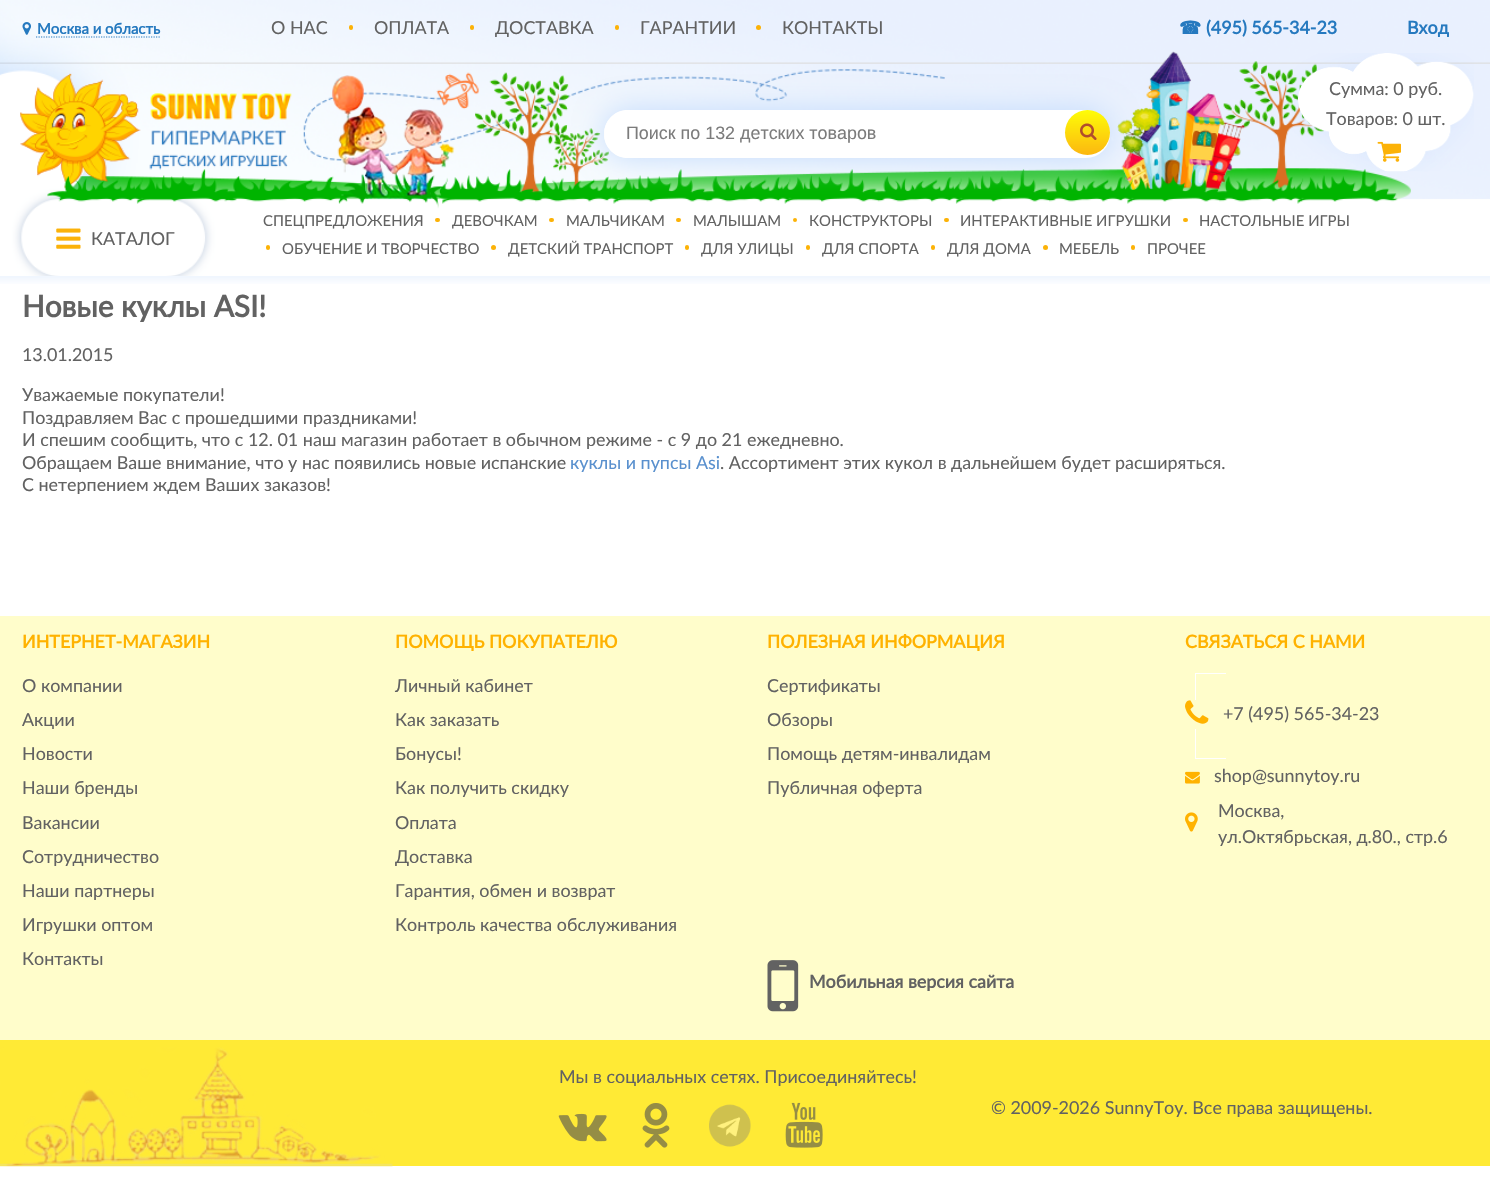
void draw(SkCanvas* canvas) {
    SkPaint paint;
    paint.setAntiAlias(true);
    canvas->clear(0xFFFFFFFF);
    canvas->drawImageRect(SkImages::DeferredFromEncodedData(SkData::MakeFromFileName("img1.png")), SkRect::MakeXYWH(0, 0, 1490, 277), SkSamplingOptions());
    canvas->drawImageRect(SkImages::DeferredFromEncodedData(SkData::MakeFromFileName("img2.png")), SkRect::MakeXYWH(22, 22, 9, 13), SkSamplingOptions());
    SkFont font1(fontMgr->matchFamilyStyle("Lato", SkFontStyle::Bold()), 14.9f);
    font1.setSubpixel(true);
    paint.setColor(0xFF2579BF);
    canvas->drawString("Москва и область", 37, 34, font1, paint);
    paint.setStyle(SkPaint::kStroke_Style);
    paint.setStrokeWidth(1.2f);
    paint.setPathEffect(SkDashPathEffect::Make({{1.25f, 1.25f}}, 0));
    canvas->drawPath(SkPathBuilder().moveTo(36, 37).lineTo(160, 37).detach(), paint);
    paint.setPathEffect(nullptr);
    SkFont font2(fontMgr->matchFamilyStyle("Lato", SkFontStyle::Normal()), 17.9f);
    font2.setSubpixel(true);
    paint.setStyle(SkPaint::kFill_Style);
    paint.setColor(0xFF626262);
    canvas->drawString("О НАС", 271, 34, font2, paint);
    paint.setColor(0xFFFCB207);
    canvas->drawRoundRect(SkRect::MakeXYWH(349, 25, 4, 5), 2, 2, paint);
    paint.setColor(0xFF626262);
    canvas->drawString("ОПЛАТА", 374, 34, font2, paint);
    paint.setColor(0xFFFCB207);
    canvas->drawRoundRect(SkRect::MakeXYWH(470, 25, 4, 5), 2, 2, paint);
    paint.setColor(0xFF626262);
    canvas->drawString("ДОСТАВКА", 495, 34, font2, paint);
    paint.setColor(0xFFFCB207);
    canvas->drawRoundRect(SkRect::MakeXYWH(615, 25, 4, 5), 2, 2, paint);
    paint.setColor(0xFF626262);
    canvas->drawString("ГАРАНТИИ", 640, 34, font2, paint);
    paint.setColor(0xFFFCB207);
    canvas->drawCircle(758.5f, 27.5f, 2.5f, paint);
    paint.setColor(0xFF626262);
    canvas->drawString("КОНТАКТЫ", 782, 34, font2, paint);
    SkFont font3(fontMgr->matchFamilyStyle("DejaVu Sans", SkFontStyle::Bold()), 17.9f);
    font3.setSubpixel(true);
    paint.setColor(0xFF2579BF);
    canvas->drawString("☎", 1179, 34, font3, paint);
    SkFont font4(fontMgr->matchFamilyStyle("Lato", SkFontStyle::Bold()), 17.9f);
    font4.setSubpixel(true);
    canvas->drawString("(495) 565-34-23", 1206, 34, font4, paint);
    canvas->drawString("Вход", 1407, 34, font4, paint);
    paint.setColor(0xFFC3DBFC);
    paint.setMaskFilter(SkMaskFilter::MakeBlur(kNormal_SkBlurStyle, 15));
    canvas->drawRoundRect(SkRect::MakeXYWH(604, 110, 506, 48), 24, 24, paint);
    paint.setMaskFilter(nullptr);
    paint.setColor(0xFFFFFFFF);
    canvas->drawRoundRect(SkRect::MakeXYWH(604, 110, 506, 48), 24, 24, paint);
    canvas->drawPath(SkPathBuilder().moveTo(628, 110).lineTo(1024, 110).lineTo(1024, 158).lineTo(628, 158).cubicTo(614.5f, 158, 604, 147.5f, 604, 134).cubicTo(604, 120.5f, 614.5f, 110, 628, 110).close().detach(), paint);
    SkFont font5(fontMgr->matchFamilyStyle("Liberation Sans", SkFontStyle::Normal()), 17.9f);
    font5.setSubpixel(true);
    paint.setColor(0xFF7C7C7C);
    canvas->drawString("Поиск по 132 детских товаров", 626, 139, font5, paint);
    {
        const SkColor colors[] = {0xFFFEFD07, 0xFFFCB710};
        const float stops[] = {0, 1};
        const SkPoint ends[] = {{1088, 110}, {1088, 155}};
        paint.setShader(SkGradientShader::MakeLinear(ends, colors, stops, 2, SkTileMode::kClamp));
        paint.setAlpha(255);
    }
    canvas->drawCircle(1087.5f, 132.5f, 22.5f, paint);
    canvas->drawImageRect(SkImages::DeferredFromEncodedData(SkData::MakeFromFileName("img3.png")), SkRect::MakeXYWH(1080, 123, 17, 17), SkSamplingOptions());
    canvas->drawImageRect(SkImages::DeferredFromEncodedData(SkData::MakeFromFileName("img4.png")), SkRect::MakeXYWH(56, 228, 25, 21), SkSamplingOptions());
    paint.setShader(nullptr);
    paint.setColor(0xFF626262);
    canvas->drawString("КАТАЛОГ", 91, 245, font2, paint);
    SkFont font6(fontMgr->matchFamilyStyle("Lato", SkFontStyle::Normal()), 14.9f);
    font6.setSubpixel(true);
    canvas->drawString("СПЕЦПРЕДЛОЖЕНИЯ", 263, 226, font6, paint);
    paint.setColor(0xFFFCB207);
    canvas->drawRoundRect(SkRect::MakeXYWH(435, 218, 5, 4), 2, 2, paint);
    paint.setColor(0xFF626262);
    canvas->drawString("ДЕВОЧКАМ", 452, 226, font6, paint);
    paint.setColor(0xFFFCB207);
    canvas->drawRoundRect(SkRect::MakeXYWH(549, 218, 5, 4), 2, 2, paint);
    paint.setColor(0xFF626262);
    canvas->drawString("МАЛЬЧИКАМ", 566, 226, font6, paint);
    paint.setColor(0xFFFCB207);
    canvas->drawRoundRect(SkRect::MakeXYWH(676, 218, 5, 4), 2, 2, paint);
    paint.setColor(0xFF626262);
    canvas->drawString("МАЛЫШАМ", 693, 226, font6, paint);
    paint.setColor(0xFFFCB207);
    canvas->drawCircle(795, 220, 2, paint);
    paint.setColor(0xFF626262);
    canvas->drawString("КОНСТРУКТОРЫ", 809, 226, font6, paint);
    paint.setColor(0xFFFCB207);
    canvas->drawRoundRect(SkRect::MakeXYWH(944, 218, 5, 4), 2, 2, paint);
    paint.setColor(0xFF626262);
    canvas->drawString("ИНТЕРАКТИВНЫЕ ИГРУШКИ", 960, 226, font6, paint);
    paint.setColor(0xFFFCB207);
    canvas->drawRoundRect(SkRect::MakeXYWH(1183, 218, 5, 4), 2, 2, paint);
    paint.setColor(0xFF626262);
    canvas->drawString("НАСТОЛЬНЫЕ ИГРЫ", 1199, 226, font6, paint);
    paint.setColor(0xFFFCB207);
    canvas->drawRoundRect(SkRect::MakeXYWH(266, 245, 4, 5), 2, 2, paint);
    paint.setColor(0xFF626262);
    canvas->drawString("ОБУЧЕНИЕ И ТВОРЧЕСТВО", 282, 254, font6, paint);
    paint.setColor(0xFFFCB207);
    canvas->drawCircle(493.5f, 247.5f, 2.5f, paint);
    paint.setColor(0xFF626262);
    canvas->drawString("ДЕТСКИЙ ТРАНСПОРТ", 508, 254, font6, paint);
    paint.setColor(0xFFFCB207);
    canvas->drawRoundRect(SkRect::MakeXYWH(685, 245, 4, 5), 2, 2, paint);
    paint.setColor(0xFF626262);
    canvas->drawString("ДЛЯ УЛИЦЫ", 701, 254, font6, paint);
    paint.setColor(0xFFFCB207);
    canvas->drawRoundRect(SkRect::MakeXYWH(806, 245, 4, 5), 2, 2, paint);
    paint.setColor(0xFF626262);
    canvas->drawString("ДЛЯ СПОРТА", 822, 254, font6, paint);
    paint.setColor(0xFFFCB207);
    canvas->drawRoundRect(SkRect::MakeXYWH(931, 245, 4, 5), 2, 2, paint);
    paint.setColor(0xFF626262);
    canvas->drawString("ДЛЯ ДОМА", 947, 254, font6, paint);
    paint.setColor(0xFFFCB207);
    canvas->drawCircle(1045.5f, 247.5f, 2.5f, paint);
    paint.setColor(0xFF626262);
    canvas->drawString("МЕБЕЛЬ", 1059, 254, font6, paint);
    paint.setColor(0xFFFCB207);
    canvas->drawRoundRect(SkRect::MakeXYWH(1131, 245, 4, 5), 2, 2, paint);
    paint.setColor(0xFF626262);
    canvas->drawString("ПРОЧЕЕ", 1147, 254, font6, paint);
    {
        const SkColor colors[] = {0xFFEFF5FE, 0x00EFF5FE};
        const float stops[] = {0, 1};
        const SkPoint ends[] = {{745, 276}, {745, 286}};
        paint.setShader(SkGradientShader::MakeLinear(ends, colors, stops, 2, SkTileMode::kClamp));
        paint.setAlpha(255);
    }
    canvas->drawRect(SkRect::MakeXYWH(0, 276, 1490, 8), paint);
    SkFont font7(fontMgr->matchFamilyStyle("Lato", SkFontStyle::Bold()), 29.75f);
    font7.setSubpixel(true);
    paint.setShader(nullptr);
    paint.setColor(0xFF626262);
    canvas->drawString("Новые куклы ASI!", 22, 317, font7, paint);
    canvas->drawString("13.01.2015", 22, 361, font2, paint);
    canvas->drawString("Уважаемые покупатели!", 22, 401, font2, paint);
    canvas->drawString("Поздравляем Вас с прошедшими праздниками!", 22, 424, font2, paint);
    canvas->drawString("И спешим сообщить, что с 12. 01 наш магазин работает в обычном режиме - с 9 до 21 ежедневно.", 22, 446, font2, paint);
    canvas->drawString("Обращаем Ваше внимание, что у нас появились новые испанские", 22, 469, font2, paint);
    paint.setColor(0xFF5990CE);
    canvas->drawString("куклы и пупсы Asi", 570, 469, font2, paint);
    paint.setColor(0xFF626262);
    canvas->drawString(". Ассортимент этих кукол в дальнейшем будет расширяться.", 720, 469, font2, paint);
    canvas->drawString("С нетерпением ждем Ваших заказов!", 22, 491, font2, paint);
    paint.setColor(0xFFFFFDCB);
    canvas->drawRect(SkRect::MakeXYWH(0, 616, 1490, 424), paint);
    paint.setColor(0xFFFFB200);
    canvas->drawString("ИНТЕРНЕТ-МАГАЗИН", 22, 648, font4, paint);
    paint.setColor(0xFF626262);
    canvas->drawString("О компании", 22, 692, font2, paint);
    canvas->drawString("Акции", 22, 726, font2, paint);
    canvas->drawString("Новости", 22, 760, font2, paint);
    canvas->drawString("Наши бренды", 22, 794, font2, paint);
    canvas->drawString("Вакансии", 22, 829, font2, paint);
    canvas->drawString("Сотрудничество", 22, 863, font2, paint);
    canvas->drawString("Наши партнеры", 22, 897, font2, paint);
    canvas->drawString("Игрушки оптом", 22, 931, font2, paint);
    canvas->drawString("Контакты", 22, 965, font2, paint);
    paint.setColor(0xFFFFB200);
    canvas->drawString("ПОМОЩЬ ПОКУПАТЕЛЮ", 395, 648, font4, paint);
    paint.setColor(0xFF626262);
    canvas->drawString("Личный кабинет", 395, 692, font2, paint);
    canvas->drawString("Как заказать", 395, 726, font2, paint);
    canvas->drawString("Бонусы!", 395, 760, font2, paint);
    canvas->drawString("Как получить скидку", 395, 794, font2, paint);
    canvas->drawString("Оплата", 395, 829, font2, paint);
    canvas->drawString("Доставка", 395, 863, font2, paint);
    canvas->drawString("Гарантия, обмен и возврат", 395, 897, font2, paint);
    canvas->drawString("Контроль качества обслуживания", 395, 931, font2, paint);
    paint.setColor(0xFFFFB200);
    canvas->drawString("ПОЛЕЗНАЯ ИНФОРМАЦИЯ", 767, 648, font4, paint);
    paint.setColor(0xFF626262);
    canvas->drawString("Сертификаты", 767, 692, font2, paint);
    canvas->drawString("Обзоры", 767, 726, font2, paint);
    canvas->drawString("Помощь детям-инвалидам", 767, 760, font2, paint);
    canvas->drawString("Публичная оферта", 767, 794, font2, paint);
    canvas->drawImageRect(SkImages::DeferredFromEncodedData(SkData::MakeFromFileName("img5.png")), SkRect::MakeXYWH(767, 960, 32, 52), SkSamplingOptions());
    canvas->drawString("Мобильная версия сайта", 809, 988, font4, paint);
    paint.setColor(0xFFFFB200);
    canvas->drawString("СВЯЗАТЬСЯ С НАМИ", 1185, 648, font4, paint);
    paint.setColor(0xFFFFFFFF);
    canvas->drawRect(SkRect::MakeXYWH(1195, 673, 31, 1), paint);
    canvas->drawRect(SkRect::MakeXYWH(1195, 758, 31, 1), paint);
    canvas->drawRect(SkRect::MakeXYWH(1195, 673, 1, 86), paint);
    paint.setColor(0xFFFFFDCB);
    canvas->drawRect(SkRect::MakeXYWH(1195, 700, 1, 29), paint);
    canvas->drawImageRect(SkImages::DeferredFromEncodedData(SkData::MakeFromFileName("img6.png")), SkRect::MakeXYWH(1185, 700, 24, 24), SkSamplingOptions());
    paint.setColor(0xFF626262);
    canvas->drawString("+7 (495) 565-34-23", 1223, 720, font2, paint);
    canvas->drawImageRect(SkImages::DeferredFromEncodedData(SkData::MakeFromFileName("img7.png")), SkRect::MakeXYWH(1185, 771, 15, 13), SkSamplingOptions());
    canvas->drawString("shop@sunnytoy.ru", 1214, 782, font2, paint);
    canvas->drawImageRect(SkImages::DeferredFromEncodedData(SkData::MakeFromFileName("img8.png")), SkRect::MakeXYWH(1185, 812, 13, 20), SkSamplingOptions());
    canvas->drawString("Москва,", 1218, 817, font2, paint);
    canvas->drawString("ул.Октябрьская, д.80., стр.6", 1218, 843, font2, paint);
    paint.setColor(0xFFFFEA35);
    canvas->drawRect(SkRect::MakeXYWH(0, 1040, 1490, 126), paint);
    canvas->drawImageRect(SkImages::DeferredFromEncodedData(SkData::MakeFromFileName("img9.png")), SkRect::MakeXYWH(0, 1047, 393, 120), SkSamplingOptions());
    paint.setColor(0xFF626262);
    canvas->drawString("Мы в социальных сетях. Присоединяйтесь!", 559, 1083, font2, paint);
    canvas->drawImageRect(SkImages::DeferredFromEncodedData(SkData::MakeFromFileName("img10.png")), SkRect::MakeXYWH(558, 1113, 49, 29), SkSamplingOptions());
    canvas->drawImageRect(SkImages::DeferredFromEncodedData(SkData::MakeFromFileName("img11.png")), SkRect::MakeXYWH(642, 1103, 28, 45), SkSamplingOptions());
    canvas->drawImageRect(SkImages::DeferredFromEncodedData(SkData::MakeFromFileName("img12.png")), SkRect::MakeXYWH(709, 1104, 42, 43), SkSamplingOptions());
    canvas->drawImageRect(SkImages::DeferredFromEncodedData(SkData::MakeFromFileName("img13.png")), SkRect::MakeXYWH(785, 1102, 38, 46), SkSamplingOptions());
    canvas->drawString("© 2009-2026 SunnyToy. Все права защищены.", 991, 1114, font2, paint);
    canvas->drawImageRect(SkImages::DeferredFromEncodedData(SkData::MakeFromFileName("img14.png")), SkRect::MakeXYWH(1292, 53, 182, 119), SkSamplingOptions());
    canvas->drawString("Сумма: 0 руб.", 1329, 95, font2, paint);
    canvas->drawString("Товаров: 0 шт.", 1326, 125, font2, paint);
    canvas->drawImageRect(SkImages::DeferredFromEncodedData(SkData::MakeFromFileName("img15.png")), SkRect::MakeXYWH(1377, 141, 24, 21), SkSamplingOptions());
}
